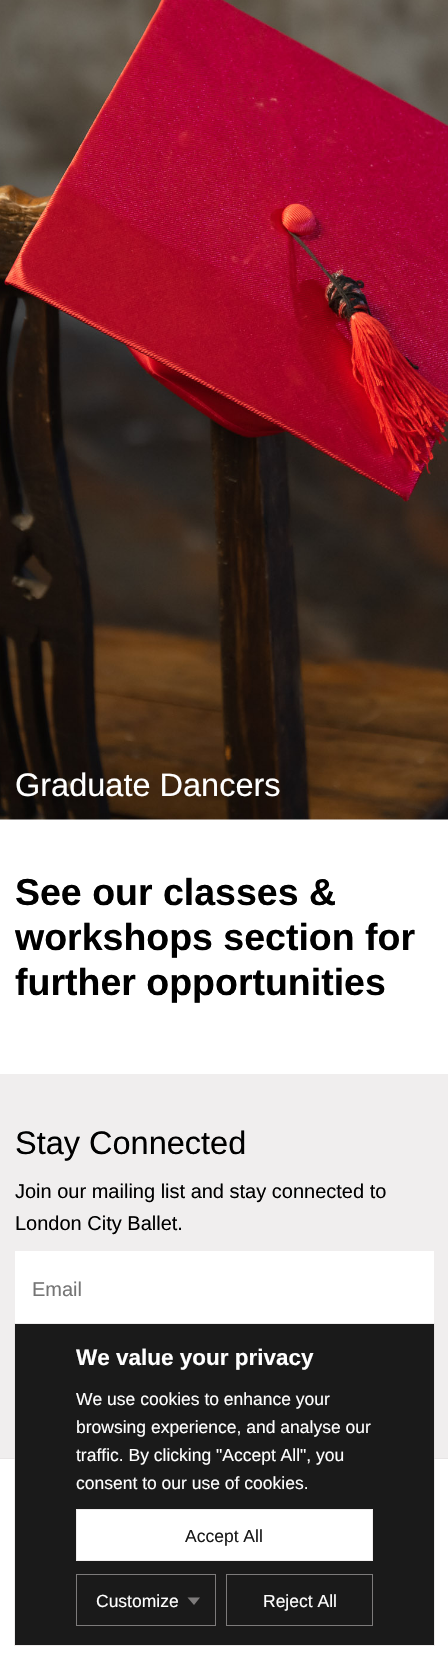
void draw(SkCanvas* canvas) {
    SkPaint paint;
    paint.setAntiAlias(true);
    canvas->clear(0xFFFFFFFF);
    canvas->drawImageRect(SkImages::DeferredFromEncodedData(SkData::MakeFromFileName("img1.png")), SkRect::MakeXYWH(0, 0, 448, 820), SkSamplingOptions());
    SkFont font1(fontMgr->matchFamilyStyle("Liberation Sans", SkFontStyle::Normal()), 32.5f);
    font1.setSubpixel(true);
    paint.setColor(0xFFFFFFFF);
    canvas->drawString("Graduate Dancers", 15, 796, font1, paint);
    SkFont font2(fontMgr->matchFamilyStyle("Liberation Sans", SkFontStyle::Bold()), 37.5f);
    font2.setSubpixel(true);
    paint.setColor(0xFF000000);
    canvas->drawString("See our classes &", 15, 905, font2, paint);
    canvas->drawString("workshops section for", 15, 950, font2, paint);
    canvas->drawString("further opportunities", 15, 995, font2, paint);
    paint.setColor(0xFFF0EEEE);
    canvas->drawRect(SkRect::MakeXYWH(0, 1074, 448, 384), paint);
    paint.setColor(0xFFE8E5E5);
    canvas->drawRect(SkRect::MakeXYWH(0, 1458, 448, 1), paint);
    paint.setColor(0xFF000000);
    canvas->drawString("Stay Connected", 15, 1154, font1, paint);
    SkFont font3(fontMgr->matchFamilyStyle("Liberation Sans", SkFontStyle::Normal()), 20);
    font3.setSubpixel(true);
    canvas->drawString("Join our mailing list and stay connected to", 15, 1198, font3, paint);
    canvas->drawString("London City Ballet.", 15, 1230, font3, paint);
    paint.setColor(0xFFFFFFFF);
    canvas->drawRect(SkRect::MakeXYWH(15, 1251, 419, 73), paint);
    paint.setColor(0xFF757575);
    canvas->drawString("Email", 32, 1296, font3, paint);
    paint.setStyle(SkPaint::kStroke_Style);
    paint.setStrokeWidth(1);
    paint.setColor(0x80E0DCDC);
    canvas->drawRect(SkRect::MakeXYWH(14.5f, 1323.5f, 420, 322), paint);
    paint.setStyle(SkPaint::kFill_Style);
    paint.setColor(0xFF1A1A1A);
    canvas->drawRect(SkRect::MakeXYWH(15, 1324, 419, 321), paint);
    SkFont font4(fontMgr->matchFamilyStyle("Liberation Sans", SkFontStyle::Bold()), 22.5f);
    font4.setSubpixel(true);
    paint.setColor(0xFFFFFFFF);
    canvas->drawString("We value your privacy", 76, 1365, font4, paint);
    SkFont font5(fontMgr->matchFamilyStyle("Liberation Sans", SkFontStyle::Normal()), 17.5f);
    font5.setSubpixel(true);
    canvas->drawString("We use cookies to enhance your", 76, 1405, font5, paint);
    canvas->drawString("browsing experience, and analyse our", 76, 1433, font5, paint);
    canvas->drawString("traffic. By clicking \"Accept All\", you", 76, 1461, font5, paint);
    canvas->drawString("consent to our use of cookies.", 76, 1489, font5, paint);
    canvas->drawRect(SkRect::MakeXYWH(76.5f, 1509.5f, 296, 51), paint);
    paint.setStyle(SkPaint::kStroke_Style);
    paint.setColor(0xFFF0EEEE);
    canvas->drawRect(SkRect::MakeXYWH(76.5f, 1509.5f, 296, 51), paint);
    paint.setStyle(SkPaint::kFill_Style);
    paint.setColor(0xFF1A1A1A);
    canvas->drawString("Accept All", 185, 1542, font5, paint);
    paint.setStyle(SkPaint::kStroke_Style);
    paint.setColor(0xFF7D7B7B);
    canvas->drawRect(SkRect::MakeXYWH(76.5f, 1574.5f, 139, 51), paint);
    paint.setStyle(SkPaint::kFill_Style);
    paint.setColor(0xFFFFFFFF);
    canvas->drawString("Customize", 96, 1607, font5, paint);
    paint.setColor(0xFF7D7B7B);
    canvas->drawPath(SkPathBuilder().moveTo(187.5f, 1597.5f).lineTo(200, 1597.5f).lineTo(194, 1605).close().detach(), paint);
    paint.setStyle(SkPaint::kStroke_Style);
    canvas->drawRect(SkRect::MakeXYWH(226.5f, 1574.5f, 146, 51), paint);
    paint.setStyle(SkPaint::kFill_Style);
    paint.setColor(0xFFFFFFFF);
    canvas->drawString("Reject All", 263, 1607, font5, paint);
}
